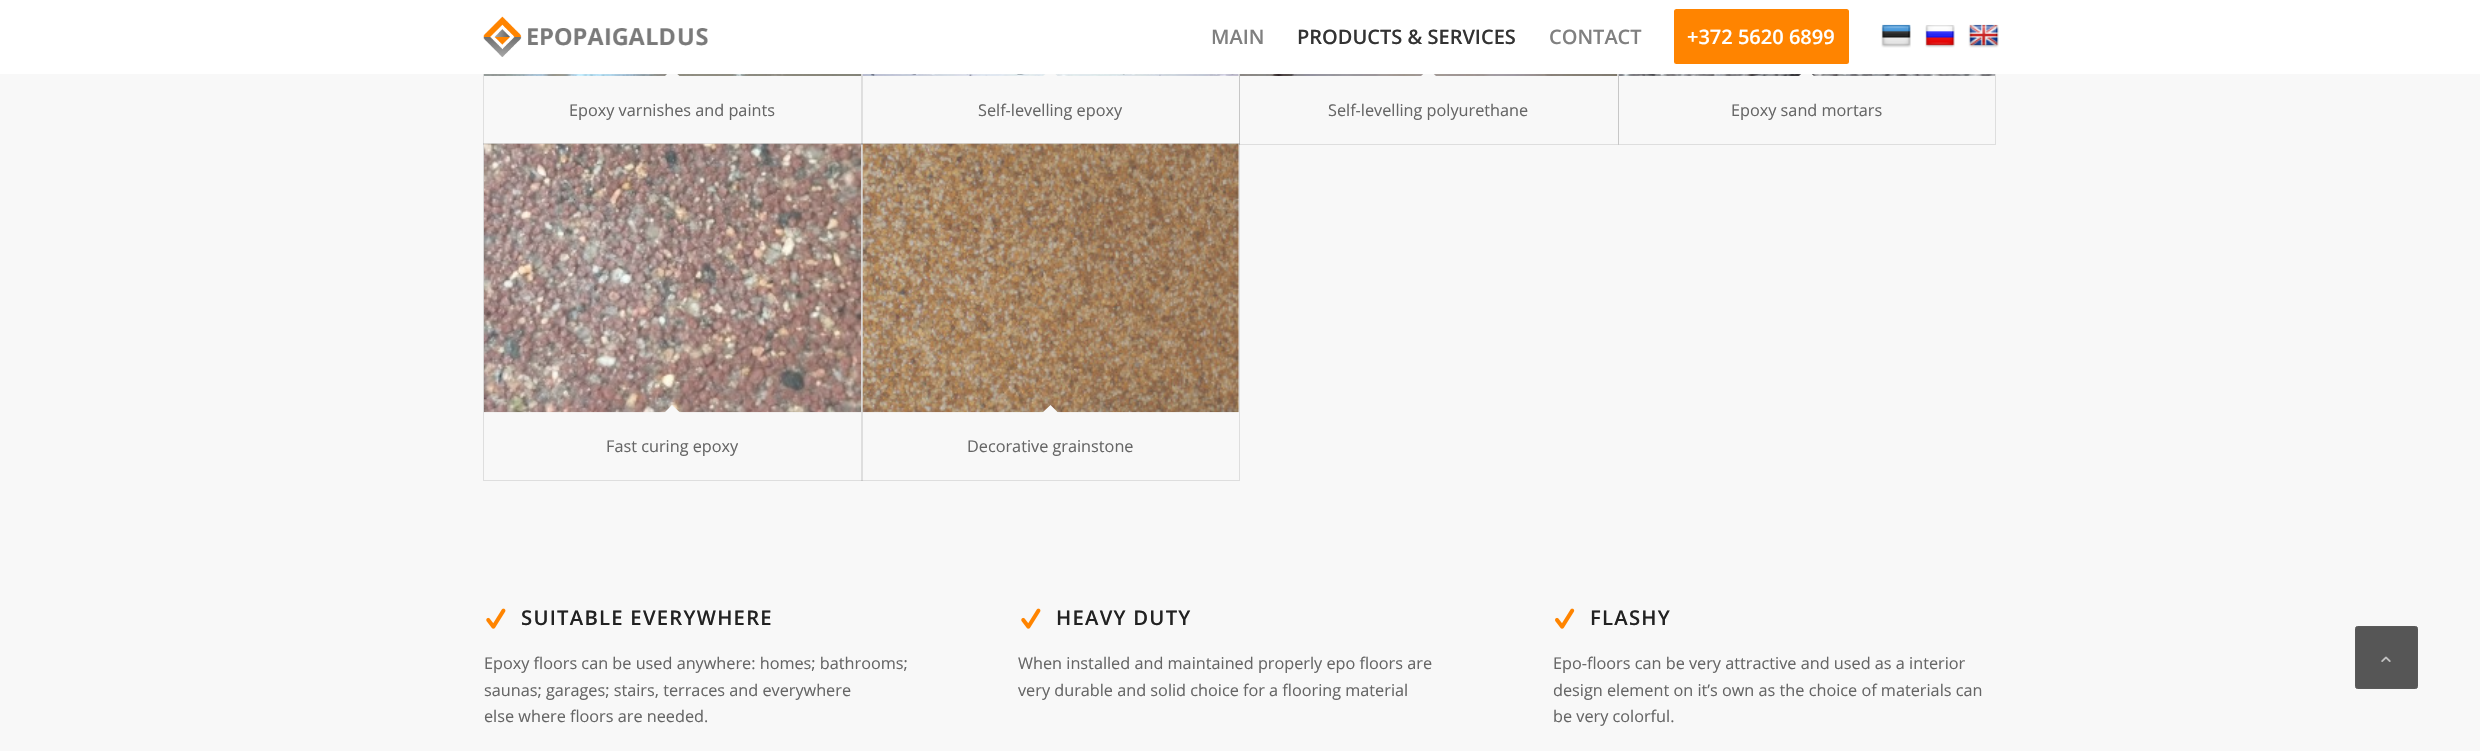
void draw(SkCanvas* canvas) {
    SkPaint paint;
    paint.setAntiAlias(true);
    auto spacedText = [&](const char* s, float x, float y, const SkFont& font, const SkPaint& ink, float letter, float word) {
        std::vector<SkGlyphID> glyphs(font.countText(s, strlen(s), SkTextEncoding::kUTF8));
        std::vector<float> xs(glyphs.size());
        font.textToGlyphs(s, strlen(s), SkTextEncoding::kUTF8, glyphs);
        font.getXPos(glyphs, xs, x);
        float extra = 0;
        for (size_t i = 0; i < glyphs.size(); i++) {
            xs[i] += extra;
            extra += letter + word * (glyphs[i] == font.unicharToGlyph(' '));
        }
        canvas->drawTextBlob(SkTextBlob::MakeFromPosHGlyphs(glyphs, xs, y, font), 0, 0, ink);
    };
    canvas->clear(0xFFF8F8F8);
    paint.setStyle(SkPaint::kStroke_Style);
    paint.setStrokeWidth(1);
    paint.setColor(0xFFDFDFDF);
    canvas->drawRect(SkRect::MakeXYWH(483.5f, -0.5f, 379, 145), paint);
    canvas->drawImageRect(SkImages::DeferredFromEncodedData(SkData::MakeFromFileName("img5.png")), SkRect::MakeXYWH(483, 74, 379, 2), SkSamplingOptions());
    paint.setStyle(SkPaint::kFill_Style);
    paint.setColor(0xFFF8F8F8);
    canvas->drawPath(SkPathBuilder().moveTo(672, 69).lineTo(681, 77.5f).lineTo(672, 86.5f).lineTo(663.5f, 77.5f).close().detach(), paint);
    paint.setStyle(SkPaint::kStroke_Style);
    paint.setColor(0x1A000000);
    canvas->drawRect(SkRect::MakeXYWH(861.5f, -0.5f, 378, 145), paint);
    canvas->drawImageRect(SkImages::DeferredFromEncodedData(SkData::MakeFromFileName("img6.png")), SkRect::MakeXYWH(862, 74, 377, 2), SkSamplingOptions());
    paint.setStyle(SkPaint::kFill_Style);
    paint.setColor(0xFFF8F8F8);
    canvas->drawPath(SkPathBuilder().moveTo(1050.5f, 69).lineTo(1059, 77.5f).lineTo(1050.5f, 86.5f).lineTo(1041.5f, 77.5f).close().detach(), paint);
    paint.setStyle(SkPaint::kStroke_Style);
    paint.setColor(0x1A000000);
    canvas->drawRect(SkRect::MakeXYWH(1239.5f, -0.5f, 379, 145), paint);
    canvas->drawImageRect(SkImages::DeferredFromEncodedData(SkData::MakeFromFileName("img7.png")), SkRect::MakeXYWH(1240, 74, 378, 2), SkSamplingOptions());
    paint.setStyle(SkPaint::kFill_Style);
    paint.setColor(0xFFF8F8F8);
    canvas->drawPath(SkPathBuilder().moveTo(1428.5f, 69).lineTo(1437.5f, 77.5f).lineTo(1428.5f, 86.5f).lineTo(1419.5f, 77.5f).close().detach(), paint);
    paint.setStyle(SkPaint::kStroke_Style);
    paint.setColor(0x1A000000);
    canvas->drawRect(SkRect::MakeXYWH(1618.5f, -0.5f, 377, 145), paint);
    canvas->drawImageRect(SkImages::DeferredFromEncodedData(SkData::MakeFromFileName("img8.png")), SkRect::MakeXYWH(1618, 74, 377, 2), SkSamplingOptions());
    paint.setStyle(SkPaint::kFill_Style);
    paint.setColor(0xFFF8F8F8);
    canvas->drawPath(SkPathBuilder().moveTo(1806.5f, 69).lineTo(1815.5f, 77.5f).lineTo(1806.5f, 86.5f).lineTo(1797.5f, 77.5f).close().detach(), paint);
    paint.setColor(0xFFFFFFFF);
    canvas->drawRect(SkRect::MakeXYWH(0, 0, 2480, 74), paint);
    canvas->drawImageRect(SkImages::DeferredFromEncodedData(SkData::MakeFromFileName("img1.png")), SkRect::MakeXYWH(483, 16, 225, 41), SkSamplingOptions());
    SkFont font1(fontMgr->matchFamilyStyle("Open Sans", SkFontStyle(600, SkFontStyle::kNormal_Width, SkFontStyle::kUpright_Slant)), 20);
    font1.setSubpixel(true);
    paint.setColor(0xFF808080);
    canvas->drawString("MAIN", 1211, 44, font1, paint);
    paint.setColor(0xFF333333);
    canvas->drawString("PRODUCTS & SERVICES", 1297, 44, font1, paint);
    paint.setColor(0xFF808080);
    canvas->drawString("CONTACT", 1549, 44, font1, paint);
    paint.setColor(0xFFFF8400);
    canvas->drawRoundRect(SkRect::MakeXYWH(1675.5f, 10.5f, 172, 52), 1, 1, paint);
    paint.setStyle(SkPaint::kStroke_Style);
    paint.setStrokeWidth(3);
    canvas->drawRoundRect(SkRect::MakeXYWH(1675.5f, 10.5f, 172, 52), 1, 1, paint);
    paint.setStyle(SkPaint::kFill_Style);
    paint.setColor(0xFFFFFFFF);
    canvas->drawString("+372 5620 6899", 1687, 44, font1, paint);
    canvas->drawImageRect(SkImages::DeferredFromEncodedData(SkData::MakeFromFileName("img2.png")), SkRect::MakeXYWH(1881, 24, 30, 24), SkSamplingOptions());
    canvas->drawImageRect(SkImages::DeferredFromEncodedData(SkData::MakeFromFileName("img3.png")), SkRect::MakeXYWH(1925, 25, 30, 23), SkSamplingOptions());
    canvas->drawImageRect(SkImages::DeferredFromEncodedData(SkData::MakeFromFileName("img4.png")), SkRect::MakeXYWH(1968, 24, 31, 24), SkSamplingOptions());
    SkFont font2(fontMgr->matchFamilyStyle("Open Sans", SkFontStyle::Normal()), 16.25f);
    font2.setSubpixel(true);
    paint.setColor(0xFF666666);
    canvas->drawString("Epoxy varnishes and paints", 569, 116, font2, paint);
    canvas->drawString("Self-levelling epoxy", 978, 116, font2, paint);
    canvas->drawString("Self-levelling polyurethane", 1328, 116, font2, paint);
    canvas->drawString("Epoxy sand mortars", 1731, 116, font2, paint);
    paint.setStyle(SkPaint::kStroke_Style);
    paint.setStrokeWidth(1);
    paint.setColor(0x1A000000);
    canvas->drawRect(SkRect::MakeXYWH(483.5f, 143.5f, 379, 337), paint);
    paint.setStyle(SkPaint::kFill_Style);
    paint.setColor(0xFFF8F8F8);
    canvas->drawRect(SkRect::MakeXYWH(484, 144, 377, 1), paint);
    canvas->drawImageRect(SkImages::DeferredFromEncodedData(SkData::MakeFromFileName("img9.png")), SkRect::MakeXYWH(483, 143, 379, 270), SkSamplingOptions());
    canvas->drawPath(SkPathBuilder().moveTo(672, 405).lineTo(681, 413.5f).lineTo(672, 422.5f).lineTo(663.5f, 413.5f).close().detach(), paint);
    paint.setColor(0xFF666666);
    canvas->drawString("Fast curing epoxy", 606, 452, font2, paint);
    paint.setStyle(SkPaint::kStroke_Style);
    paint.setColor(0x1A000000);
    canvas->drawRect(SkRect::MakeXYWH(861.5f, 143.5f, 378, 337), paint);
    paint.setStyle(SkPaint::kFill_Style);
    paint.setColor(0xFFF8F8F8);
    canvas->drawRect(SkRect::MakeXYWH(863, 144, 376, 1), paint);
    canvas->drawImageRect(SkImages::DeferredFromEncodedData(SkData::MakeFromFileName("img10.png")), SkRect::MakeXYWH(862, 143, 377, 270), SkSamplingOptions());
    canvas->drawPath(SkPathBuilder().moveTo(1050.5f, 405).lineTo(1059, 413.5f).lineTo(1050.5f, 422.5f).lineTo(1041.5f, 413.5f).close().detach(), paint);
    paint.setColor(0xFF666666);
    canvas->drawString("Decorative grainstone", 967, 452, font2, paint);
    canvas->drawImageRect(SkImages::DeferredFromEncodedData(SkData::MakeFromFileName("img11.png")), SkRect::MakeXYWH(486, 608, 20, 21), SkSamplingOptions());
    SkFont font3(fontMgr->matchFamilyStyle("Open Sans", SkFontStyle(600, SkFontStyle::kNormal_Width, SkFontStyle::kUpright_Slant)), 20.25f);
    font3.setSubpixel(true);
    paint.setColor(0xFF222222);
    spacedText("SUITABLE EVERYWHERE", 521, 625, font3, paint, 1.25f, 0);
    paint.setColor(0xFF666666);
    canvas->drawString("Epoxy floors can be used anywhere: homes; bathrooms;", 484, 669, font2, paint);
    canvas->drawString("saunas; garages; stairs, terraces and everywhere", 484, 696, font2, paint);
    canvas->drawString("else where floors are needed.", 484, 722, font2, paint);
    canvas->drawImageRect(SkImages::DeferredFromEncodedData(SkData::MakeFromFileName("img11.png")), SkRect::MakeXYWH(1021, 608, 20, 21), SkSamplingOptions());
    paint.setColor(0xFF222222);
    spacedText("HEAVY DUTY", 1056, 625, font3, paint, 1.25f, 0);
    paint.setColor(0xFF666666);
    canvas->drawString("When installed and maintained properly epo floors are", 1018, 669, font2, paint);
    canvas->drawString("very durable and solid choice for a flooring material", 1018, 696, font2, paint);
    canvas->drawImageRect(SkImages::DeferredFromEncodedData(SkData::MakeFromFileName("img12.png")), SkRect::MakeXYWH(1555, 608, 20, 21), SkSamplingOptions());
    paint.setColor(0xFF222222);
    spacedText("FLASHY", 1590, 625, font3, paint, 1.25f, 0);
    paint.setColor(0xFF666666);
    canvas->drawString("Epo-floors can be very attractive and used as a interior", 1553, 669, font2, paint);
    canvas->drawString("design element on it’s own as the choice of materials can", 1553, 696, font2, paint);
    canvas->drawString("be very colorful.", 1553, 722, font2, paint);
    paint.setColor(0xFF565656);
    canvas->drawRoundRect(SkRect::MakeXYWH(2355.5f, 626.5f, 62, 62), 2, 2, paint);
    paint.setStyle(SkPaint::kStroke_Style);
    paint.setColor(0xFF5A5A5A);
    canvas->drawRoundRect(SkRect::MakeXYWH(2355.5f, 626.5f, 62, 62), 2, 2, paint);
    canvas->drawImageRect(SkImages::DeferredFromEncodedData(SkData::MakeFromFileName("img13.png")), SkRect::MakeXYWH(2381, 656, 10, 6), SkSamplingOptions());
}
